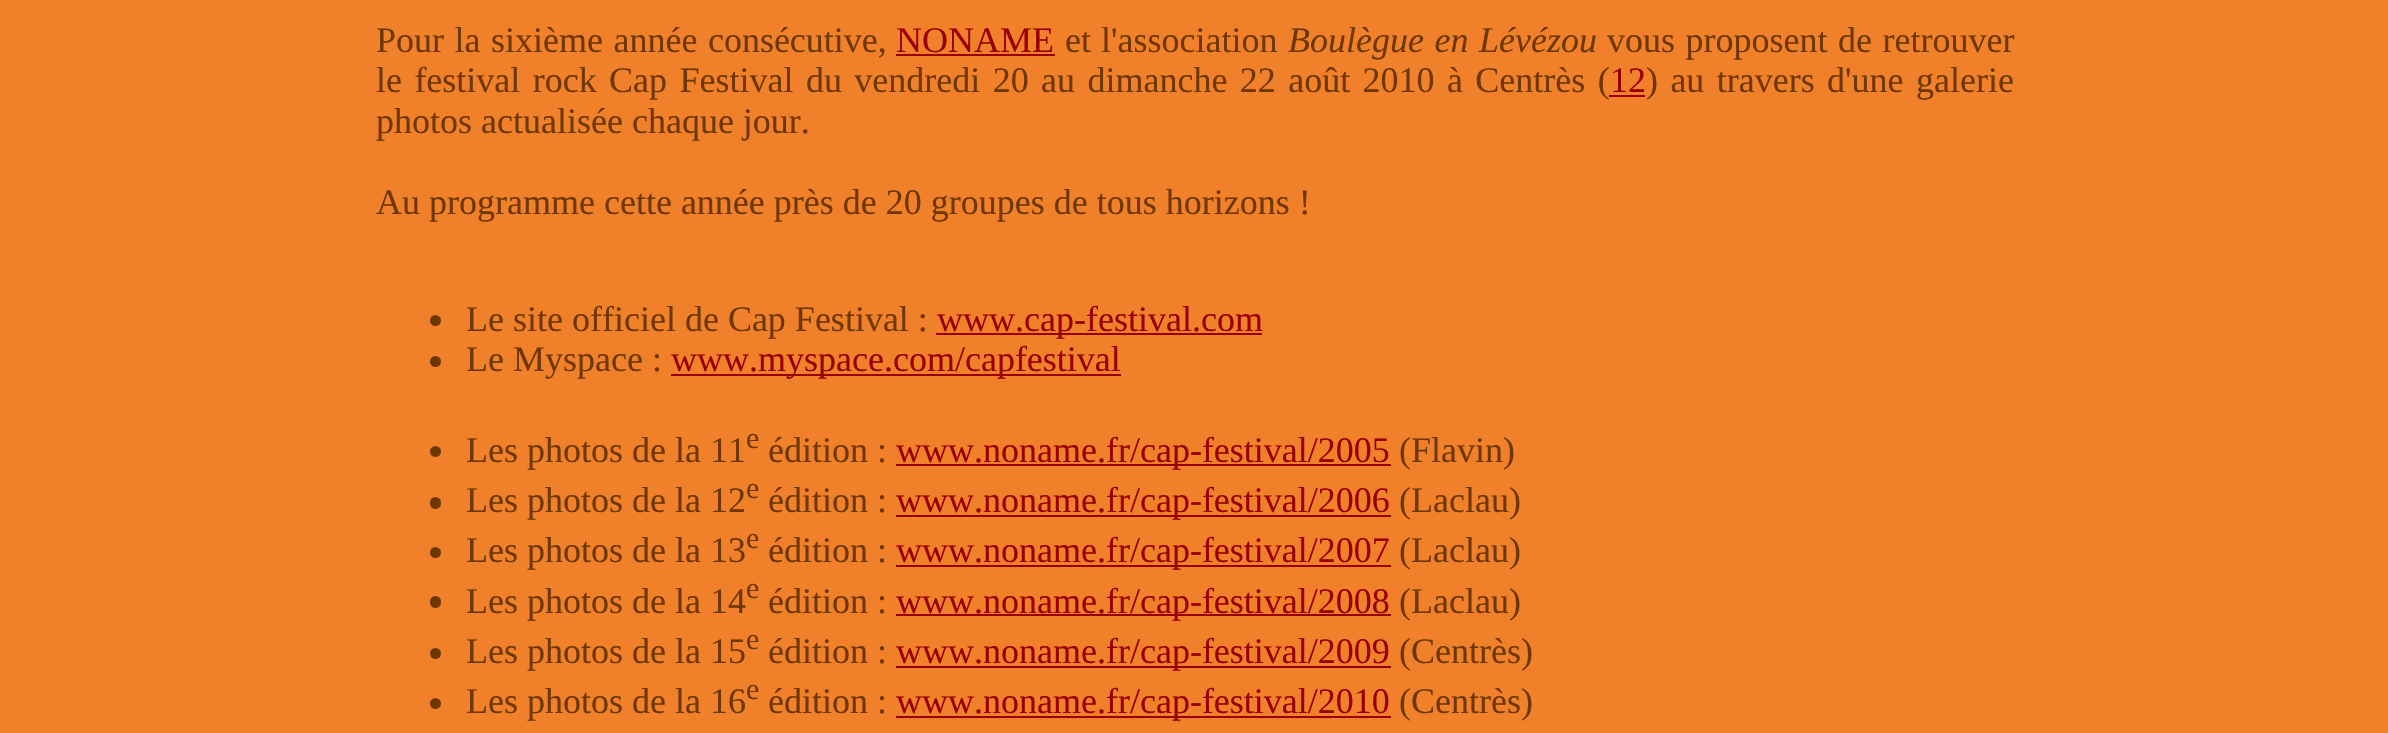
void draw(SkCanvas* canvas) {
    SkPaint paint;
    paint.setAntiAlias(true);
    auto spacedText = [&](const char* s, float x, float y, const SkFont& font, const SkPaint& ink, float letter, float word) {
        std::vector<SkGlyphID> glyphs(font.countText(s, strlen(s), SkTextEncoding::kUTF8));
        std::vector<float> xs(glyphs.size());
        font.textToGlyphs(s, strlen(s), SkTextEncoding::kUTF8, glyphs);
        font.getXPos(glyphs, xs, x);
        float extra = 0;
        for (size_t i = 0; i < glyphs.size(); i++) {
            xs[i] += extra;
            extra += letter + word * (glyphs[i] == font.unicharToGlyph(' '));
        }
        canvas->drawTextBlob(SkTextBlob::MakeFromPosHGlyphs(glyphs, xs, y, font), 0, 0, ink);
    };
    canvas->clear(0xFFF08029);
    SkFont font1(fontMgr->matchFamilyStyle("Liberation Serif", SkFontStyle::Normal()), 36);
    font1.setSubpixel(true);
    paint.setColor(0xFF6F3700);
    spacedText("Pour la sixième année consécutive,", 376, 52, font1, paint, 0, 1.5f);
    paint.setColor(0xFF990000);
    canvas->drawString("NONAME", 896, 52, font1, paint);
    canvas->drawRect(SkRect::MakeXYWH(896, 54, 159, 2), paint);
    paint.setColor(0xFF6F3700);
    spacedText("et l'association", 1065, 52, font1, paint, 0, 1);
    SkFont font2(fontMgr->matchFamilyStyle("Liberation Serif", SkFontStyle::Italic()), 36);
    font2.setSubpixel(true);
    spacedText("Boulègue en Lévézou", 1288, 52, font2, paint, 0, 1.5f);
    spacedText("vous proposent de retrouver", 1607, 52, font1, paint, 0, 1.5f);
    spacedText("le festival rock Cap Festival du vendredi 20 au dimanche 22 août 2010 à Centrès (", 376, 92, font1, paint, 0, 3.4f);
    paint.setColor(0xFF990000);
    canvas->drawString("12", 1610, 92, font1, paint);
    canvas->drawRect(SkRect::MakeXYWH(1609, 95, 36, 2), paint);
    paint.setColor(0xFF6F3700);
    spacedText(") au travers d'une galerie", 1646, 92, font1, paint, 0, 3.4f);
    canvas->drawString("photos actualisée chaque jour.", 376, 133, font1, paint);
    canvas->drawString("Au programme cette année près de 20 groupes de tous horizons !", 376, 214, font1, paint);
    canvas->drawCircle(435.5f, 320.5f, 5.5f, paint);
    canvas->drawString("Le site officiel de Cap Festival :", 466, 331, font1, paint);
    paint.setColor(0xFF990000);
    canvas->drawRect(SkRect::MakeXYWH(936, 333, 326, 2), paint);
    canvas->drawString("www.cap-festival.com", 937, 331, font1, paint);
    paint.setColor(0xFF6F3700);
    canvas->drawCircle(435.5f, 361.5f, 5.5f, paint);
    canvas->drawString("Le Myspace :", 466, 371, font1, paint);
    paint.setColor(0xFF990000);
    canvas->drawRect(SkRect::MakeXYWH(671, 374, 450, 2), paint);
    canvas->drawString("www.myspace.com/capfestival", 671, 371, font1, paint);
    paint.setColor(0xFF6F3700);
    canvas->drawCircle(435.5f, 451.5f, 5.5f, paint);
    canvas->drawString("Les photos de la 11", 466, 462, font1, paint);
    SkFont font3(fontMgr->matchFamilyStyle("Liberation Serif", SkFontStyle::Normal()), 30);
    font3.setSubpixel(true);
    canvas->drawString("e", 746, 448, font3, paint);
    canvas->drawString("édition :", 768, 462, font1, paint);
    paint.setColor(0xFF990000);
    canvas->drawRect(SkRect::MakeXYWH(896, 464, 495, 2), paint);
    canvas->drawString("www.noname.fr/cap-festival/2005", 896, 462, font1, paint);
    paint.setColor(0xFF6F3700);
    canvas->drawString("(Flavin)", 1399, 462, font1, paint);
    canvas->drawRoundRect(SkRect::MakeXYWH(430, 497, 11, 12), 5.5f, 5.5f, paint);
    canvas->drawString("Les photos de la 12", 466, 512, font1, paint);
    canvas->drawString("e", 746, 498, font3, paint);
    canvas->drawString("édition :", 768, 512, font1, paint);
    paint.setColor(0xFF990000);
    canvas->drawRect(SkRect::MakeXYWH(896, 515, 495, 2), paint);
    canvas->drawString("www.noname.fr/cap-festival/2006", 896, 512, font1, paint);
    paint.setColor(0xFF6F3700);
    canvas->drawString("(Laclau)", 1399, 512, font1, paint);
    canvas->drawCircle(435.5f, 552.5f, 5.5f, paint);
    canvas->drawString("Les photos de la 13", 466, 562, font1, paint);
    canvas->drawString("e", 746, 548, font3, paint);
    canvas->drawString("édition :", 768, 562, font1, paint);
    paint.setColor(0xFF990000);
    canvas->drawRect(SkRect::MakeXYWH(896, 565, 495, 2), paint);
    canvas->drawString("www.noname.fr/cap-festival/2007", 896, 562, font1, paint);
    paint.setColor(0xFF6F3700);
    canvas->drawString("(Laclau)", 1399, 562, font1, paint);
    canvas->drawRoundRect(SkRect::MakeXYWH(430, 596, 11, 12), 5.5f, 5.5f, paint);
    canvas->drawString("Les photos de la 14", 466, 613, font1, paint);
    canvas->drawString("e", 746, 598, font3, paint);
    canvas->drawString("édition :", 768, 613, font1, paint);
    paint.setColor(0xFF990000);
    canvas->drawRect(SkRect::MakeXYWH(896, 614, 495, 2), paint);
    canvas->drawString("www.noname.fr/cap-festival/2008", 896, 613, font1, paint);
    paint.setColor(0xFF6F3700);
    canvas->drawString("(Laclau)", 1399, 613, font1, paint);
    canvas->drawCircle(435.5f, 653.5f, 5.5f, paint);
    canvas->drawString("Les photos de la 15", 466, 663, font1, paint);
    canvas->drawString("e", 746, 649, font3, paint);
    canvas->drawString("édition :", 768, 663, font1, paint);
    paint.setColor(0xFF990000);
    canvas->drawRect(SkRect::MakeXYWH(896, 666, 495, 2), paint);
    canvas->drawString("www.noname.fr/cap-festival/2009", 896, 663, font1, paint);
    paint.setColor(0xFF6F3700);
    canvas->drawString("(Centrès)", 1399, 663, font1, paint);
    canvas->drawCircle(435.5f, 703.5f, 5.5f, paint);
    canvas->drawString("Les photos de la 16", 466, 713, font1, paint);
    canvas->drawString("e", 746, 699, font3, paint);
    canvas->drawString("édition :", 768, 713, font1, paint);
    paint.setColor(0xFF990000);
    canvas->drawRect(SkRect::MakeXYWH(896, 716, 495, 2), paint);
    canvas->drawString("www.noname.fr/cap-festival/2010", 896, 713, font1, paint);
    paint.setColor(0xFF6F3700);
    canvas->drawString("(Centrès)", 1399, 713, font1, paint);
}
